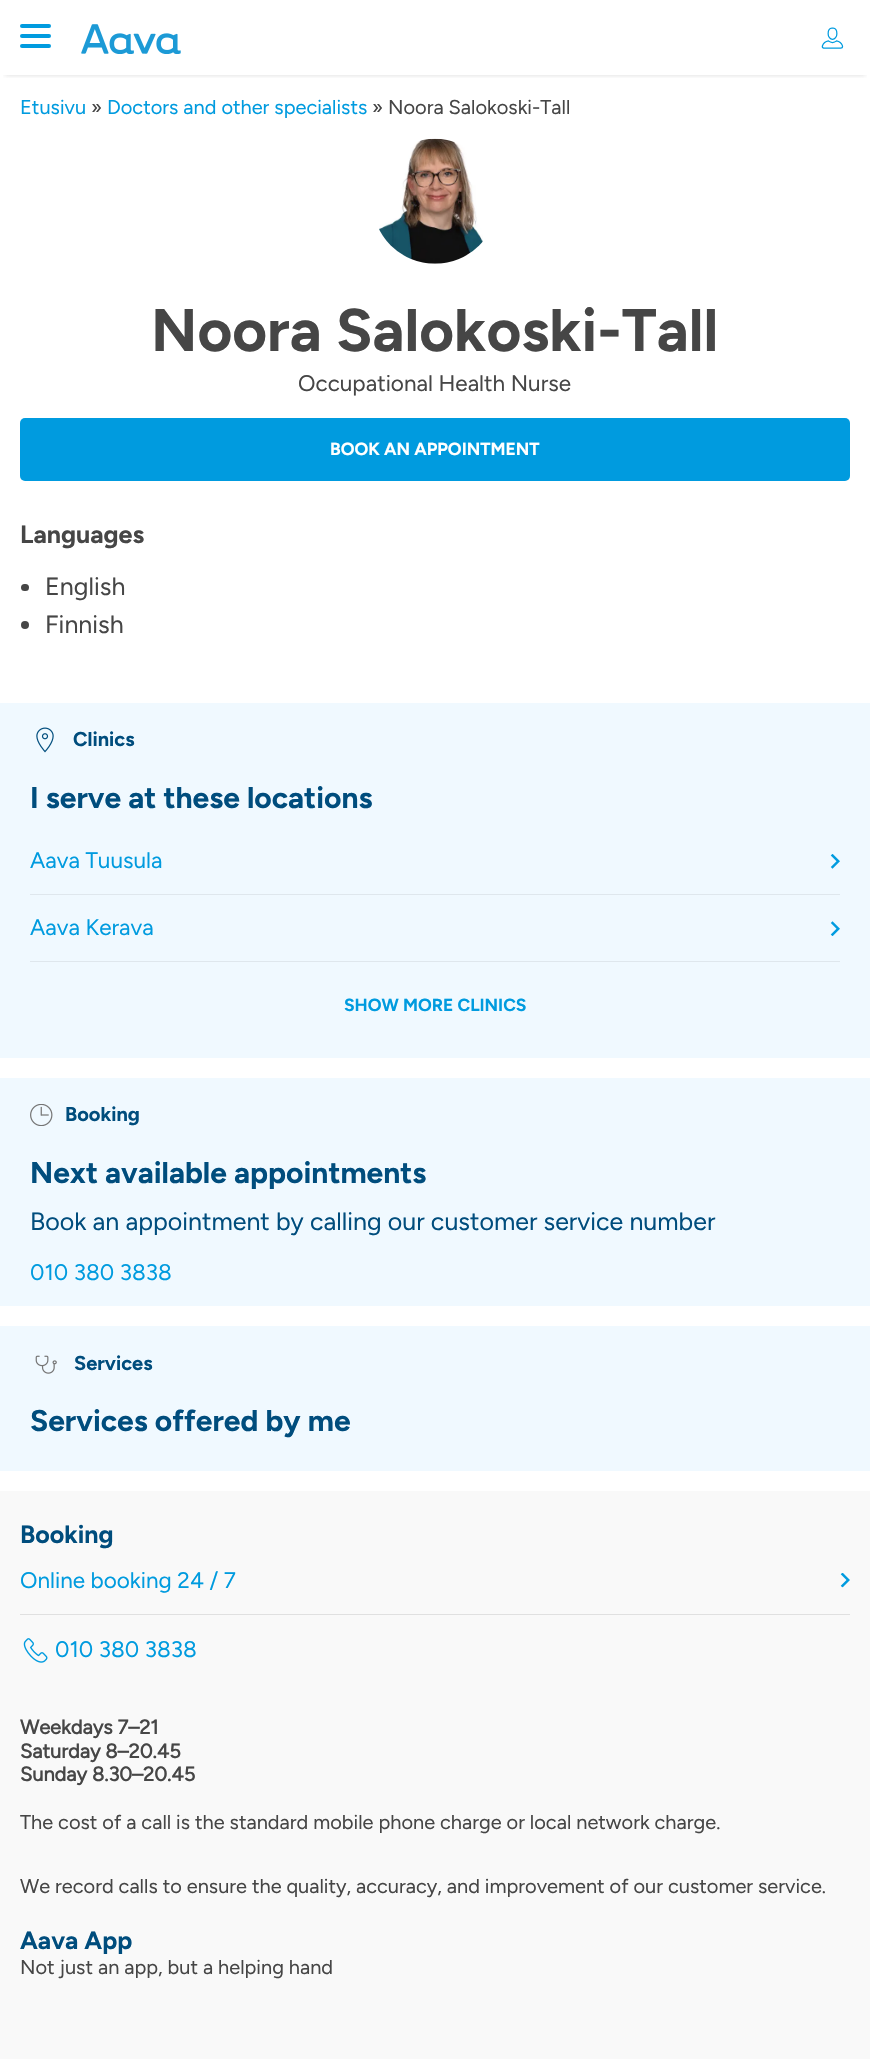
void draw(SkCanvas* canvas) {
    SkPaint paint;
    paint.setAntiAlias(true);
    canvas->clear(0xFFFFFFFF);
    canvas->save();
    canvas->clipRect(SkRect::MakeXYWH(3, 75, 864, 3));
    paint.setColor(0x33464646);
    paint.setMaskFilter(SkMaskFilter::MakeBlur(kNormal_SkBlurStyle, 2.5f));
    canvas->drawRect(SkRect::MakeXYWH(5, 10, 860, 65), paint);
    paint.setMaskFilter(nullptr);
    canvas->restore();
    paint.setColor(0xFF009BDF);
    canvas->drawRoundRect(SkRect::MakeXYWH(20, 24, 31, 4), 2, 2, paint);
    canvas->drawRoundRect(SkRect::MakeXYWH(20, 34, 31, 4), 2, 2, paint);
    canvas->drawRoundRect(SkRect::MakeXYWH(20, 44, 31, 4), 2, 2, paint);
    canvas->drawImageRect(SkImages::DeferredFromEncodedData(SkData::MakeFromFileName("img1.png")), SkRect::MakeXYWH(81, 24, 100, 30), SkSamplingOptions());
    canvas->drawImageRect(SkImages::DeferredFromEncodedData(SkData::MakeFromFileName("img2.png")), SkRect::MakeXYWH(821, 27, 23, 22), SkSamplingOptions());
    SkFont font1(fontMgr->matchFamilyStyle("Figtree", SkFontStyle::Normal()), 20);
    font1.setSubpixel(true);
    canvas->drawString("Etusivu", 20, 114, font1, paint);
    paint.setColor(0xFF464646);
    canvas->drawString("»", 91, 114, font1, paint);
    paint.setColor(0xFF009BDF);
    canvas->drawString("Doctors and other specialists", 107, 114, font1, paint);
    paint.setColor(0xFF464646);
    canvas->drawString("» Noora Salokoski-Tall", 372, 114, font1, paint);
    canvas->drawImageRect(SkImages::DeferredFromEncodedData(SkData::MakeFromFileName("img3.png")), SkRect::MakeXYWH(379, 138, 104, 126), SkSamplingOptions());
    SkFont font2(fontMgr->matchFamilyStyle("Figtree", SkFontStyle::Bold()), 60);
    font2.setSubpixel(true);
    canvas->drawString("Noora Salokoski-Tall", 151, 351, font2, paint);
    SkFont font3(fontMgr->matchFamilyStyle("Figtree", SkFontStyle::Normal()), 22.5f);
    font3.setSubpixel(true);
    canvas->drawString("Occupational Health Nurse", 298, 391, font3, paint);
    paint.setColor(0xFF009BDF);
    canvas->drawRoundRect(SkRect::MakeXYWH(20, 418, 830, 63), 5, 5, paint);
    SkFont font4(fontMgr->matchFamilyStyle("Figtree", SkFontStyle::Bold()), 17.5f);
    font4.setSubpixel(true);
    paint.setColor(0xFFFFFFFF);
    canvas->drawString("BOOK AN APPOINTMENT", 330, 455, font4, paint);
    SkFont font5(fontMgr->matchFamilyStyle("Figtree", SkFontStyle::Bold()), 25);
    font5.setSubpixel(true);
    paint.setColor(0xFF464646);
    canvas->drawString("Languages", 20, 543, font5, paint);
    canvas->drawRoundRect(SkRect::MakeXYWH(21, 584, 8, 7), 3.5f, 3.5f, paint);
    SkFont font6(fontMgr->matchFamilyStyle("Figtree", SkFontStyle::Normal()), 25);
    font6.setSubpixel(true);
    canvas->drawString("English", 45, 595, font6, paint);
    canvas->drawCircle(25, 625, 4, paint);
    canvas->drawString("Finnish", 45, 633, font6, paint);
    paint.setColor(0xFFF0F9FF);
    canvas->drawRect(SkRect::MakeXYWH(0, 703, 870, 355), paint);
    canvas->drawImageRect(SkImages::DeferredFromEncodedData(SkData::MakeFromFileName("img4.png")), SkRect::MakeXYWH(36, 727, 18, 26), SkSamplingOptions());
    SkFont font7(fontMgr->matchFamilyStyle("Figtree", SkFontStyle::Bold()), 20);
    font7.setSubpixel(true);
    paint.setColor(0xFF004D7D);
    canvas->drawString("Clinics", 73, 746, font7, paint);
    SkFont font8(fontMgr->matchFamilyStyle("Figtree", SkFontStyle::Bold()), 30);
    font8.setSubpixel(true);
    canvas->drawString("I serve at these locations", 30, 808, font8, paint);
    paint.setColor(0xFFDFE7ED);
    canvas->drawRect(SkRect::MakeXYWH(30, 894, 810, 1), paint);
    canvas->drawImageRect(SkImages::DeferredFromEncodedData(SkData::MakeFromFileName("img5.png")), SkRect::MakeXYWH(830, 854, 10, 15), SkSamplingOptions());
    paint.setColor(0xFF009BDF);
    canvas->drawString("Aava Tuusula", 30, 868, font3, paint);
    paint.setColor(0xFFDFE7ED);
    canvas->drawRect(SkRect::MakeXYWH(30, 961, 810, 1), paint);
    canvas->drawImageRect(SkImages::DeferredFromEncodedData(SkData::MakeFromFileName("img6.png")), SkRect::MakeXYWH(830, 921, 10, 15), SkSamplingOptions());
    paint.setColor(0xFF009BDF);
    canvas->drawString("Aava Kerava", 30, 935, font3, paint);
    canvas->drawString("SHOW MORE CLINICS", 344, 1011, font4, paint);
    paint.setColor(0xFFF0F9FF);
    canvas->drawRect(SkRect::MakeXYWH(0, 1078, 870, 228), paint);
    canvas->drawImageRect(SkImages::DeferredFromEncodedData(SkData::MakeFromFileName("img7.png")), SkRect::MakeXYWH(30, 1104, 23, 22), SkSamplingOptions());
    paint.setColor(0xFF004D7D);
    canvas->drawString("Booking", 65, 1121, font7, paint);
    canvas->drawString("Next available appointments", 30, 1183, font8, paint);
    canvas->drawString("Book an appointment by calling our customer service number", 30, 1230, font6, paint);
    paint.setColor(0xFF009BDF);
    canvas->drawString("010 380 3838", 30, 1280, font3, paint);
    paint.setColor(0xFFF0F9FF);
    canvas->drawRect(SkRect::MakeXYWH(0, 1326, 870, 145), paint);
    canvas->drawImageRect(SkImages::DeferredFromEncodedData(SkData::MakeFromFileName("img8.png")), SkRect::MakeXYWH(35, 1355, 22, 19), SkSamplingOptions());
    paint.setColor(0xFF004D7D);
    canvas->drawString("Services", 74, 1370, font7, paint);
    canvas->drawString("Services offered by me", 30, 1431, font8, paint);
    paint.setColor(0xFFF9F9F9);
    canvas->drawRect(SkRect::MakeXYWH(0, 1491, 870, 568), paint);
    paint.setColor(0xFF004D7D);
    canvas->drawString("Booking", 20, 1543, font5, paint);
    paint.setColor(0xFFE0E0E0);
    canvas->drawRect(SkRect::MakeXYWH(20, 1614, 830, 1), paint);
    paint.setColor(0xFF009BDF);
    canvas->drawString("Online booking 24 / 7", 20, 1588, font3, paint);
    canvas->drawImageRect(SkImages::DeferredFromEncodedData(SkData::MakeFromFileName("img9.png")), SkRect::MakeXYWH(840, 1573, 10, 15), SkSamplingOptions());
    canvas->drawImageRect(SkImages::DeferredFromEncodedData(SkData::MakeFromFileName("img10.png")), SkRect::MakeXYWH(23, 1638, 25, 25), SkSamplingOptions());
    canvas->drawString("010 380 3838", 55, 1657, font3, paint);
    SkFont font9(fontMgr->matchFamilyStyle("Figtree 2", SkFontStyle::Bold()), 20);
    font9.setSubpixel(true);
    paint.setColor(0xFF464646);
    canvas->drawString("Weekdays 7–21", 20, 1734, font9, paint);
    canvas->drawString("Saturday 8–20.45", 20, 1758, font9, paint);
    canvas->drawString("Sunday 8.30–20.45", 20, 1781, font9, paint);
    canvas->drawString("The cost of a call is the standard mobile phone charge or local network charge.", 20, 1829, font1, paint);
    canvas->drawString("We record calls to ensure the quality, accuracy, and improvement of our customer service.", 20, 1893, font1, paint);
    paint.setColor(0xFF004D7D);
    canvas->drawString("Aava App", 20, 1949, font5, paint);
    paint.setColor(0xFF464646);
    canvas->drawString("Not just an app, but a helping hand", 20, 1974, font1, paint);
}
